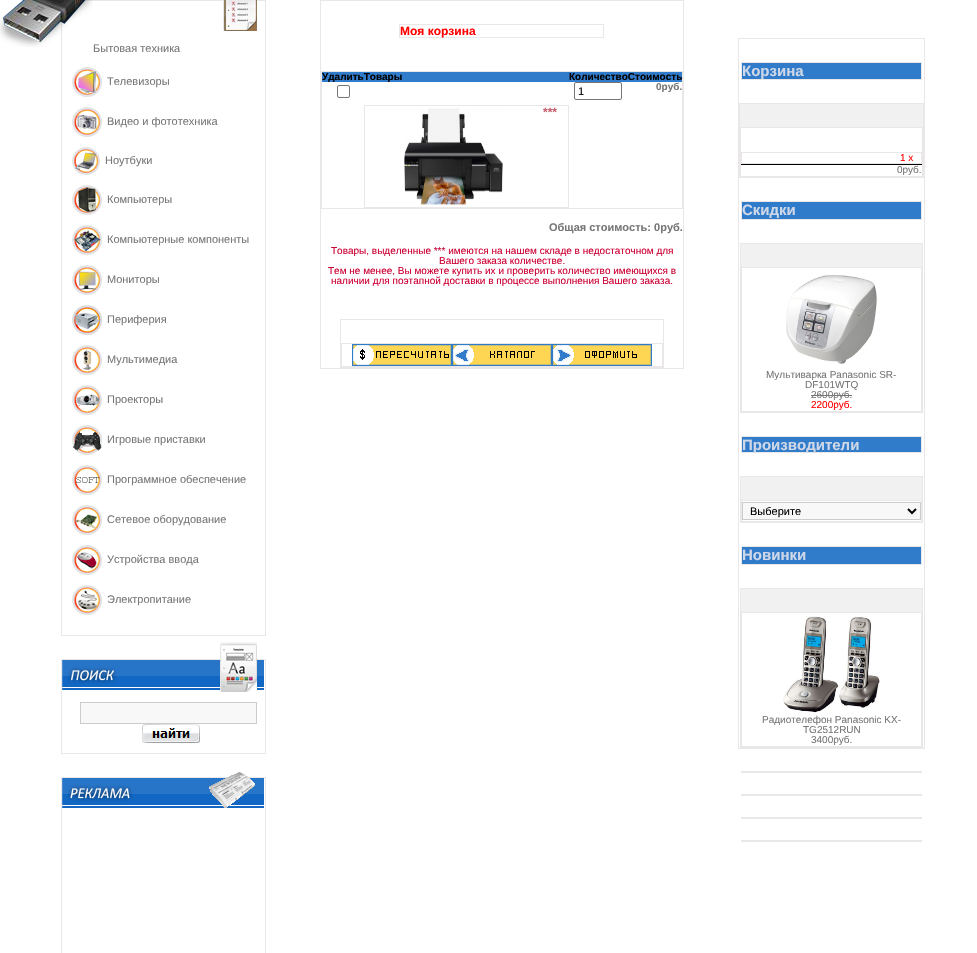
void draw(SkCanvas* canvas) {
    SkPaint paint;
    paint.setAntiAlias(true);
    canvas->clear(0xFFFFFFFF);
    paint.setColor(0xFFE9E7E7);
    canvas->drawRect(SkRect::MakeXYWH(84, 0, 182, 1), paint);
    canvas->drawRect(SkRect::MakeXYWH(265, 0, 1, 636), paint);
    canvas->drawRect(SkRect::MakeXYWH(61, 635, 205, 1), paint);
    canvas->drawRect(SkRect::MakeXYWH(61, 21, 1, 615), paint);
    canvas->drawImageRect(SkImages::DeferredFromEncodedData(SkData::MakeFromFileName("img1.png")), SkRect::MakeXYWH(0, 0, 93, 47), SkSamplingOptions());
    canvas->drawImageRect(SkImages::DeferredFromEncodedData(SkData::MakeFromFileName("img2.png")), SkRect::MakeXYWH(223, 0, 34, 31), SkSamplingOptions());
    SkFont font1(fontMgr->matchFamilyStyle("Liberation Sans", SkFontStyle::Normal()), 11);
    font1.setSubpixel(true);
    paint.setColor(0xFF777777);
    canvas->drawString("Бытовая техника", 93, 52, font1, paint);
    canvas->drawImageRect(SkImages::DeferredFromEncodedData(SkData::MakeFromFileName("img3.png")), SkRect::MakeXYWH(72, 67, 30, 30), SkSamplingOptions());
    canvas->drawString("Телевизоры", 107, 85, font1, paint);
    canvas->drawImageRect(SkImages::DeferredFromEncodedData(SkData::MakeFromFileName("img4.png")), SkRect::MakeXYWH(72, 107, 30, 30), SkSamplingOptions());
    canvas->drawString("Видео и фототехника", 107, 125, font1, paint);
    canvas->drawImageRect(SkImages::DeferredFromEncodedData(SkData::MakeFromFileName("img5.png")), SkRect::MakeXYWH(72, 147, 28, 28), SkSamplingOptions());
    canvas->drawString("Ноутбуки", 105, 164, font1, paint);
    canvas->drawImageRect(SkImages::DeferredFromEncodedData(SkData::MakeFromFileName("img6.png")), SkRect::MakeXYWH(72, 185, 30, 30), SkSamplingOptions());
    canvas->drawString("Компьютеры", 107, 203, font1, paint);
    canvas->drawImageRect(SkImages::DeferredFromEncodedData(SkData::MakeFromFileName("img7.png")), SkRect::MakeXYWH(72, 225, 30, 30), SkSamplingOptions());
    canvas->drawString("Компьютерные компоненты", 107, 243, font1, paint);
    canvas->drawImageRect(SkImages::DeferredFromEncodedData(SkData::MakeFromFileName("img8.png")), SkRect::MakeXYWH(72, 265, 30, 30), SkSamplingOptions());
    canvas->drawString("Мониторы", 107, 283, font1, paint);
    canvas->drawImageRect(SkImages::DeferredFromEncodedData(SkData::MakeFromFileName("img9.png")), SkRect::MakeXYWH(72, 305, 30, 30), SkSamplingOptions());
    canvas->drawString("Периферия", 107, 323, font1, paint);
    canvas->drawImageRect(SkImages::DeferredFromEncodedData(SkData::MakeFromFileName("img10.png")), SkRect::MakeXYWH(72, 345, 30, 30), SkSamplingOptions());
    canvas->drawString("Мультимедиа", 107, 363, font1, paint);
    canvas->drawImageRect(SkImages::DeferredFromEncodedData(SkData::MakeFromFileName("img11.png")), SkRect::MakeXYWH(72, 385, 30, 30), SkSamplingOptions());
    canvas->drawString("Проекторы", 107, 403, font1, paint);
    canvas->drawImageRect(SkImages::DeferredFromEncodedData(SkData::MakeFromFileName("img12.png")), SkRect::MakeXYWH(72, 425, 30, 30), SkSamplingOptions());
    canvas->drawString("Игровые приставки", 107, 443, font1, paint);
    canvas->drawImageRect(SkImages::DeferredFromEncodedData(SkData::MakeFromFileName("img13.png")), SkRect::MakeXYWH(72, 465, 30, 30), SkSamplingOptions());
    canvas->drawString("Программное обеспечение", 107, 483, font1, paint);
    canvas->drawImageRect(SkImages::DeferredFromEncodedData(SkData::MakeFromFileName("img14.png")), SkRect::MakeXYWH(72, 505, 30, 30), SkSamplingOptions());
    canvas->drawString("Сетевое оборудование", 107, 523, font1, paint);
    canvas->drawImageRect(SkImages::DeferredFromEncodedData(SkData::MakeFromFileName("img15.png")), SkRect::MakeXYWH(72, 545, 30, 30), SkSamplingOptions());
    canvas->drawString("Устройства ввода", 107, 563, font1, paint);
    canvas->drawImageRect(SkImages::DeferredFromEncodedData(SkData::MakeFromFileName("img16.png")), SkRect::MakeXYWH(72, 585, 30, 30), SkSamplingOptions());
    canvas->drawString("Электропитание", 107, 603, font1, paint);
    paint.setColor(0xFFE9E7E7);
    canvas->drawRect(SkRect::MakeXYWH(61, 659, 205, 1), paint);
    canvas->drawRect(SkRect::MakeXYWH(265, 659, 1, 95), paint);
    canvas->drawRect(SkRect::MakeXYWH(61, 753, 205, 1), paint);
    canvas->drawRect(SkRect::MakeXYWH(61, 659, 1, 95), paint);
    canvas->drawImageRect(SkImages::DeferredFromEncodedData(SkData::MakeFromFileName("img17.png")), SkRect::MakeXYWH(62, 660, 202, 30), SkSamplingOptions());
    canvas->drawImageRect(SkImages::DeferredFromEncodedData(SkData::MakeFromFileName("img18.png")), SkRect::MakeXYWH(220, 642, 37, 50), SkSamplingOptions());
    paint.setColor(0xFFF8F8F8);
    canvas->drawRect(SkRect::MakeXYWH(80.5f, 702.5f, 176, 21), paint);
    paint.setStyle(SkPaint::kStroke_Style);
    paint.setStrokeWidth(1);
    paint.setColor(0xFFCCCCCC);
    canvas->drawRect(SkRect::MakeXYWH(80.5f, 702.5f, 176, 21), paint);
    canvas->drawImageRect(SkImages::DeferredFromEncodedData(SkData::MakeFromFileName("img19.png")), SkRect::MakeXYWH(142, 724, 58, 19), SkSamplingOptions());
    paint.setStyle(SkPaint::kFill_Style);
    paint.setColor(0xFFE9E7E7);
    canvas->drawRect(SkRect::MakeXYWH(61, 777, 205, 1), paint);
    canvas->drawRect(SkRect::MakeXYWH(265, 777, 1, 176), paint);
    canvas->drawRect(SkRect::MakeXYWH(61, 777, 1, 176), paint);
    canvas->drawImageRect(SkImages::DeferredFromEncodedData(SkData::MakeFromFileName("img20.png")), SkRect::MakeXYWH(62, 778, 202, 30), SkSamplingOptions());
    canvas->drawImageRect(SkImages::DeferredFromEncodedData(SkData::MakeFromFileName("img21.png")), SkRect::MakeXYWH(209, 772, 46, 36), SkSamplingOptions());
    canvas->drawRect(SkRect::MakeXYWH(320, 0, 364, 1), paint);
    canvas->drawRect(SkRect::MakeXYWH(683, 0, 1, 369), paint);
    canvas->drawRect(SkRect::MakeXYWH(320, 368, 364, 1), paint);
    canvas->drawRect(SkRect::MakeXYWH(320, 0, 1, 369), paint);
    canvas->drawRect(SkRect::MakeXYWH(399, 24, 205, 1), paint);
    canvas->drawRect(SkRect::MakeXYWH(603, 24, 1, 14), paint);
    canvas->drawRect(SkRect::MakeXYWH(399, 37, 205, 1), paint);
    canvas->drawRect(SkRect::MakeXYWH(399, 24, 1, 14), paint);
    SkFont font2(fontMgr->matchFamilyStyle("Liberation Sans", SkFontStyle::Bold()), 12);
    font2.setSubpixel(true);
    paint.setColor(0xFFFF0100);
    canvas->drawString("Моя корзина", 400, 35, font2, paint);
    paint.setColor(0xFFE9E7E7);
    canvas->drawRect(SkRect::MakeXYWH(321, 71, 362, 1), paint);
    canvas->drawRect(SkRect::MakeXYWH(682, 71, 1, 138), paint);
    canvas->drawRect(SkRect::MakeXYWH(321, 208, 362, 1), paint);
    canvas->drawRect(SkRect::MakeXYWH(321, 71, 1, 138), paint);
    paint.setColor(0xFF317CCA);
    canvas->drawRect(SkRect::MakeXYWH(322, 72, 360, 10), paint);
    SkFont font3(fontMgr->matchFamilyStyle("Liberation Sans", SkFontStyle::Bold()), 10);
    font3.setSubpixel(true);
    paint.setColor(0xFF000000);
    canvas->drawString("УдалитьТовары", 322, 80, font3, paint);
    canvas->drawString("КоличествоСтоимость", 569, 80, font3, paint);
    paint.setStyle(SkPaint::kStroke_Style);
    paint.setColor(0xFF767676);
    canvas->drawRoundRect(SkRect::MakeXYWH(337.5f, 85.5f, 12, 12), 1.5f, 1.5f, paint);
    canvas->drawRoundRect(SkRect::MakeXYWH(574.5f, 82.5f, 47, 17), 1.5f, 1.5f, paint);
    paint.setStyle(SkPaint::kFill_Style);
    paint.setColor(0xFF000000);
    canvas->drawString("1", 578, 95, font1, paint);
    paint.setColor(0xFF777777);
    canvas->drawString("0руб.", 656, 90, font3, paint);
    paint.setColor(0xFFE9E7E7);
    canvas->drawRect(SkRect::MakeXYWH(364, 105, 205, 1), paint);
    canvas->drawRect(SkRect::MakeXYWH(568, 105, 1, 103), paint);
    canvas->drawRect(SkRect::MakeXYWH(364, 207, 205, 1), paint);
    canvas->drawRect(SkRect::MakeXYWH(364, 105, 1, 103), paint);
    canvas->drawImageRect(SkImages::DeferredFromEncodedData(SkData::MakeFromFileName("img22.png")), SkRect::MakeXYWH(404, 108, 99, 97), SkSamplingOptions());
    paint.setColor(0xFFC76170);
    canvas->drawString("***", 543, 116, font2, paint);
    SkFont font4(fontMgr->matchFamilyStyle("Liberation Sans", SkFontStyle::Bold()), 11);
    font4.setSubpixel(true);
    paint.setColor(0xFF777777);
    canvas->drawString("Общая стоимость: 0руб.", 549, 231, font4, paint);
    SkFont font5(fontMgr->matchFamilyStyle("Liberation Sans", SkFontStyle::Normal()), 10);
    font5.setSubpixel(true);
    paint.setColor(0xFFCC0033);
    canvas->drawString("Товары, выделенные *** имеются на нашем складе в недостаточном для", 331, 254, font5, paint);
    canvas->drawString("Вашего заказа количестве.", 439, 264, font5, paint);
    canvas->drawString("Тем не менее, Вы можете купить их и проверить количество имеющихся в", 328, 274, font5, paint);
    canvas->drawString("наличии для поэтапной доставки в процессе выполнения Вашего заказа.", 331, 284, font5, paint);
    paint.setColor(0xFFE9E7E7);
    canvas->drawRect(SkRect::MakeXYWH(340, 319, 324, 1), paint);
    canvas->drawRect(SkRect::MakeXYWH(663, 319, 1, 49), paint);
    canvas->drawRect(SkRect::MakeXYWH(340, 367, 324, 1), paint);
    canvas->drawRect(SkRect::MakeXYWH(340, 319, 1, 49), paint);
    canvas->drawRect(SkRect::MakeXYWH(341, 343, 322, 1), paint);
    canvas->drawRect(SkRect::MakeXYWH(662, 343, 1, 24), paint);
    canvas->drawRect(SkRect::MakeXYWH(341, 366, 322, 1), paint);
    canvas->drawRect(SkRect::MakeXYWH(341, 343, 1, 24), paint);
    canvas->drawImageRect(SkImages::DeferredFromEncodedData(SkData::MakeFromFileName("img23.png")), SkRect::MakeXYWH(352, 344, 100, 22), SkSamplingOptions());
    canvas->drawImageRect(SkImages::DeferredFromEncodedData(SkData::MakeFromFileName("img24.png")), SkRect::MakeXYWH(452, 344, 100, 22), SkSamplingOptions());
    canvas->drawImageRect(SkImages::DeferredFromEncodedData(SkData::MakeFromFileName("img25.png")), SkRect::MakeXYWH(552, 344, 100, 22), SkSamplingOptions());
    canvas->drawRect(SkRect::MakeXYWH(738, 38, 187, 1), paint);
    canvas->drawRect(SkRect::MakeXYWH(924, 38, 1, 711), paint);
    canvas->drawRect(SkRect::MakeXYWH(738, 748, 187, 1), paint);
    canvas->drawRect(SkRect::MakeXYWH(738, 38, 1, 711), paint);
    canvas->drawRect(SkRect::MakeXYWH(741, 62, 181, 1), paint);
    canvas->drawRect(SkRect::MakeXYWH(921, 62, 1, 18), paint);
    canvas->drawRect(SkRect::MakeXYWH(741, 79, 181, 1), paint);
    canvas->drawRect(SkRect::MakeXYWH(741, 62, 1, 18), paint);
    paint.setColor(0xFF317CCA);
    canvas->drawRect(SkRect::MakeXYWH(742, 63, 179, 16), paint);
    SkFont font6(fontMgr->matchFamilyStyle("Liberation Sans", SkFontStyle::Bold()), 15);
    font6.setSubpixel(true);
    paint.setColor(0xFFCFD8E8);
    canvas->drawString("Корзина", 742, 76, font6, paint);
    paint.setColor(0xFFF1F1F1);
    canvas->drawRect(SkRect::MakeXYWH(740, 104, 183, 23), paint);
    paint.setColor(0xFFE9E7E7);
    canvas->drawRect(SkRect::MakeXYWH(739, 103, 185, 1), paint);
    canvas->drawRect(SkRect::MakeXYWH(923, 103, 1, 75), paint);
    canvas->drawRect(SkRect::MakeXYWH(739, 177, 185, 1), paint);
    canvas->drawRect(SkRect::MakeXYWH(739, 103, 1, 75), paint);
    canvas->drawRect(SkRect::MakeXYWH(740, 127, 183, 1), paint);
    canvas->drawRect(SkRect::MakeXYWH(922, 127, 1, 50), paint);
    canvas->drawRect(SkRect::MakeXYWH(740, 176, 183, 1), paint);
    canvas->drawRect(SkRect::MakeXYWH(740, 127, 1, 50), paint);
    canvas->drawRect(SkRect::MakeXYWH(741, 152, 181, 1), paint);
    canvas->drawRect(SkRect::MakeXYWH(921, 152, 1, 12), paint);
    canvas->drawRect(SkRect::MakeXYWH(741, 163, 181, 1), paint);
    canvas->drawRect(SkRect::MakeXYWH(741, 152, 1, 12), paint);
    paint.setColor(0xFFFF0100);
    canvas->drawString("1 x", 900, 161, font5, paint);
    paint.setColor(0xFF000000);
    canvas->drawRect(SkRect::MakeXYWH(741, 164, 181, 1), paint);
    paint.setColor(0xFF777777);
    canvas->drawString("0руб.", 897, 173, font5, paint);
    paint.setColor(0xFFE9E7E7);
    canvas->drawRect(SkRect::MakeXYWH(741, 201, 181, 1), paint);
    canvas->drawRect(SkRect::MakeXYWH(921, 201, 1, 19), paint);
    canvas->drawRect(SkRect::MakeXYWH(741, 219, 181, 1), paint);
    canvas->drawRect(SkRect::MakeXYWH(741, 201, 1, 19), paint);
    paint.setColor(0xFF317CCA);
    canvas->drawRect(SkRect::MakeXYWH(742, 202, 179, 17), paint);
    paint.setColor(0xFFCFD8E8);
    canvas->drawString("Скидки", 742, 215, font6, paint);
    paint.setColor(0xFFF1F1F1);
    canvas->drawRect(SkRect::MakeXYWH(741, 244, 181, 23), paint);
    paint.setColor(0xFFE9E7E7);
    canvas->drawRect(SkRect::MakeXYWH(740, 243, 183, 1), paint);
    canvas->drawRect(SkRect::MakeXYWH(922, 243, 1, 170), paint);
    canvas->drawRect(SkRect::MakeXYWH(740, 412, 183, 1), paint);
    canvas->drawRect(SkRect::MakeXYWH(740, 243, 1, 170), paint);
    canvas->drawRect(SkRect::MakeXYWH(741, 267, 181, 1), paint);
    canvas->drawRect(SkRect::MakeXYWH(921, 267, 1, 145), paint);
    canvas->drawRect(SkRect::MakeXYWH(741, 411, 181, 1), paint);
    canvas->drawRect(SkRect::MakeXYWH(741, 267, 1, 145), paint);
    canvas->drawImageRect(SkImages::DeferredFromEncodedData(SkData::MakeFromFileName("img26.png")), SkRect::MakeXYWH(786, 275, 91, 89), SkSamplingOptions());
    paint.setColor(0xFF777777);
    canvas->drawString("Мультиварка Panasonic SR-", 766, 378, font5, paint);
    canvas->drawString("DF101WTQ", 805, 388, font5, paint);
    canvas->drawString("2600руб.", 811, 398, font5, paint);
    canvas->drawRect(SkRect::MakeXYWH(811, 395, 41, 1), paint);
    paint.setColor(0xFFFF0100);
    canvas->drawString("2200руб.", 811, 408, font5, paint);
    paint.setColor(0xFFE9E7E7);
    canvas->drawRect(SkRect::MakeXYWH(741, 436, 181, 1), paint);
    canvas->drawRect(SkRect::MakeXYWH(921, 436, 1, 17), paint);
    canvas->drawRect(SkRect::MakeXYWH(741, 452, 181, 1), paint);
    canvas->drawRect(SkRect::MakeXYWH(741, 436, 1, 17), paint);
    paint.setColor(0xFF317CCA);
    canvas->drawRect(SkRect::MakeXYWH(742, 437, 179, 15), paint);
    paint.setColor(0xFFCFD8E8);
    canvas->drawString("Производители", 742, 450, font6, paint);
    paint.setColor(0xFFF1F1F1);
    canvas->drawRect(SkRect::MakeXYWH(741, 477, 181, 23), paint);
    paint.setColor(0xFFE9E7E7);
    canvas->drawRect(SkRect::MakeXYWH(740, 476, 183, 1), paint);
    canvas->drawRect(SkRect::MakeXYWH(922, 476, 1, 47), paint);
    canvas->drawRect(SkRect::MakeXYWH(740, 522, 183, 1), paint);
    canvas->drawRect(SkRect::MakeXYWH(740, 476, 1, 47), paint);
    canvas->drawRect(SkRect::MakeXYWH(741, 500, 181, 1), paint);
    canvas->drawRect(SkRect::MakeXYWH(921, 500, 1, 22), paint);
    canvas->drawRect(SkRect::MakeXYWH(741, 521, 181, 1), paint);
    canvas->drawRect(SkRect::MakeXYWH(741, 500, 1, 22), paint);
    paint.setColor(0xFFF8F8F8);
    canvas->drawRect(SkRect::MakeXYWH(742.5f, 502.5f, 178, 17), paint);
    paint.setStyle(SkPaint::kStroke_Style);
    paint.setColor(0xFFCCCCCC);
    canvas->drawRect(SkRect::MakeXYWH(742.5f, 502.5f, 178, 17), paint);
    paint.setStrokeWidth(2);
    paint.setColor(0xFF000000);
    canvas->drawPath(SkPathBuilder().moveTo(908, 509).lineTo(912, 513).lineTo(916, 509).detach(), paint);
    paint.setStyle(SkPaint::kFill_Style);
    canvas->drawString("Выберите", 750, 515, font1, paint);
    paint.setColor(0xFFE9E7E7);
    canvas->drawRect(SkRect::MakeXYWH(741, 546, 181, 1), paint);
    canvas->drawRect(SkRect::MakeXYWH(921, 546, 1, 19), paint);
    canvas->drawRect(SkRect::MakeXYWH(741, 564, 181, 1), paint);
    canvas->drawRect(SkRect::MakeXYWH(741, 546, 1, 19), paint);
    paint.setColor(0xFF317CCA);
    canvas->drawRect(SkRect::MakeXYWH(742, 547, 179, 17), paint);
    paint.setColor(0xFFCFD8E8);
    canvas->drawString("Новинки", 742, 560, font6, paint);
    paint.setColor(0xFFF1F1F1);
    canvas->drawRect(SkRect::MakeXYWH(741, 589, 181, 23), paint);
    paint.setColor(0xFFE9E7E7);
    canvas->drawRect(SkRect::MakeXYWH(740, 588, 183, 1), paint);
    canvas->drawRect(SkRect::MakeXYWH(922, 588, 1, 160), paint);
    canvas->drawRect(SkRect::MakeXYWH(740, 747, 183, 1), paint);
    canvas->drawRect(SkRect::MakeXYWH(740, 588, 1, 160), paint);
    canvas->drawRect(SkRect::MakeXYWH(741, 612, 181, 1), paint);
    canvas->drawRect(SkRect::MakeXYWH(921, 612, 1, 135), paint);
    canvas->drawRect(SkRect::MakeXYWH(741, 746, 181, 1), paint);
    canvas->drawRect(SkRect::MakeXYWH(741, 612, 1, 135), paint);
    canvas->drawImageRect(SkImages::DeferredFromEncodedData(SkData::MakeFromFileName("img27.png")), SkRect::MakeXYWH(783, 616, 97, 97), SkSamplingOptions());
    paint.setColor(0xFF777777);
    canvas->drawString("Радиотелефон Panasonic KX-", 762, 723, font5, paint);
    canvas->drawString("TG2512RUN", 803, 733, font5, paint);
    canvas->drawString("3400руб.", 811, 743, font5, paint);
    paint.setColor(0xFFE9E7E7);
    canvas->drawRect(SkRect::MakeXYWH(741, 771, 181, 2), paint);
    canvas->drawRect(SkRect::MakeXYWH(741, 794, 181, 2), paint);
    canvas->drawRect(SkRect::MakeXYWH(741, 817, 181, 2), paint);
    canvas->drawRect(SkRect::MakeXYWH(741, 840, 181, 2), paint);
}
